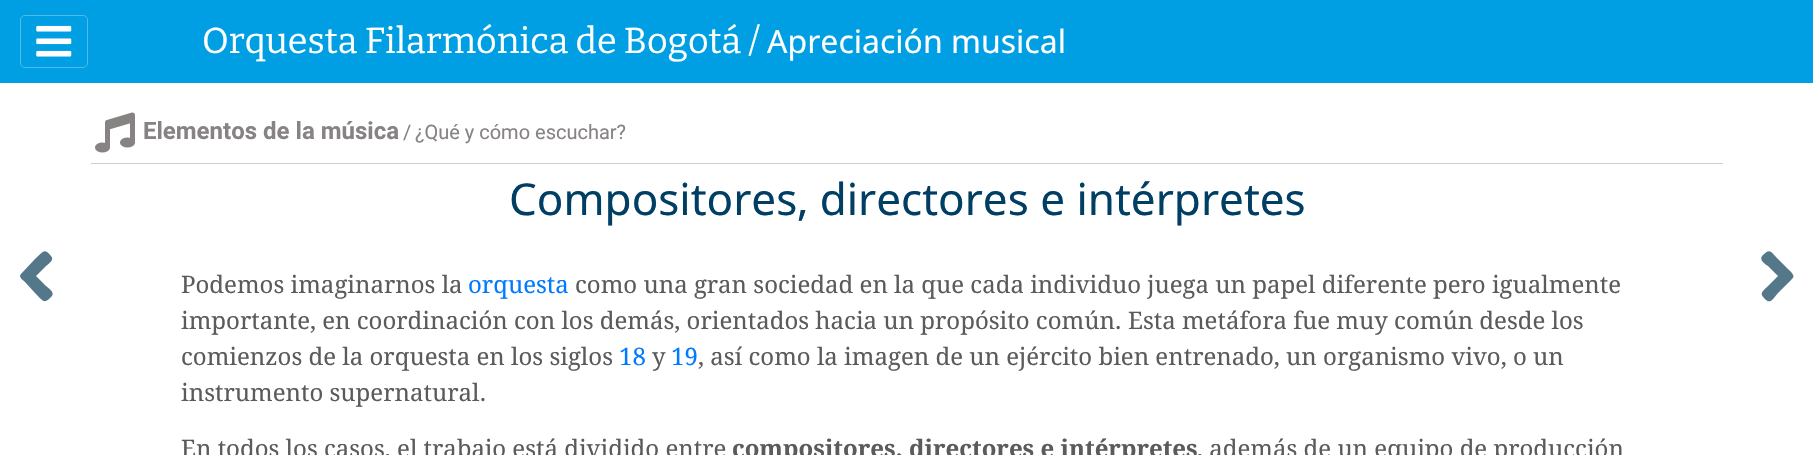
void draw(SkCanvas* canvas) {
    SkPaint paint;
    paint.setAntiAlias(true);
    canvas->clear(0xFFFFFFFF);
    paint.setColor(0xFF009FE3);
    canvas->drawRect(SkRect::MakeXYWH(0, 0, 1813, 83), paint);
    paint.setStyle(SkPaint::kStroke_Style);
    paint.setStrokeWidth(1);
    paint.setColor(0xFF4DBCEB);
    canvas->drawRoundRect(SkRect::MakeXYWH(20.5f, 15.5f, 67, 52), 4.5f, 4.5f, paint);
    canvas->drawImageRect(SkImages::DeferredFromEncodedData(SkData::MakeFromFileName("img1.png")), SkRect::MakeXYWH(36, 25, 36, 32), SkSamplingOptions());
    SkFont font1(fontMgr->matchFamilyStyle("Bitter", SkFontStyle::Normal()), 36);
    font1.setSubpixel(true);
    paint.setStyle(SkPaint::kFill_Style);
    paint.setColor(0xFFFFFFFF);
    canvas->drawString("Orquesta Filarmónica de Bogotá /", 202, 53, font1, paint);
    SkFont font2(fontMgr->matchFamilyStyle("Noto Sans", SkFontStyle::Normal()), 32);
    font2.setSubpixel(true);
    canvas->drawString("Apreciación musical", 767, 53, font2, paint);
    paint.setColor(0xFF55778A);
    canvas->drawPath(SkPathBuilder().moveTo(21, 274).lineTo(35, 259).cubicTo(44, 251, 44, 248, 51, 256).cubicTo(55, 260, 48, 264, 46, 266).lineTo(36, 276).lineTo(46, 286).cubicTo(48, 288, 55, 292, 52, 296).cubicTo(44, 305, 43, 301, 35, 293).lineTo(25, 282).cubicTo(23, 280, 18, 277, 21, 274).close().detach(), paint);
    paint.setColor(0xFFCECECE);
    canvas->drawRect(SkRect::MakeXYWH(91, 163, 1632, 1), paint);
    canvas->drawImageRect(SkImages::DeferredFromEncodedData(SkData::MakeFromFileName("img2.png")), SkRect::MakeXYWH(95, 112, 40, 41), SkSamplingOptions());
    SkFont font3(fontMgr->matchFamilyStyle("Roboto", SkFontStyle::Bold()), 24);
    font3.setSubpixel(true);
    paint.setColor(0xFF888383);
    canvas->drawString("Elementos de la música", 143, 139, font3, paint);
    SkFont font4(fontMgr->matchFamilyStyle("Roboto", SkFontStyle::Normal()), 20);
    font4.setSubpixel(true);
    canvas->drawString("/", 403, 139, font4, paint);
    canvas->drawString("¿Qué y cómo escuchar?", 415, 139, font4, paint);
    SkFont font5(fontMgr->matchFamilyStyle("Noto Sans", SkFontStyle::Normal()), 44);
    font5.setSubpixel(true);
    paint.setColor(0xFF003E64);
    canvas->drawString("Compositores, directores e intérpretes", 509, 215, font5, paint);
    SkFont font6(fontMgr->matchFamilyStyle("Droid Serif", SkFontStyle::Normal()), 24);
    font6.setSubpixel(true);
    paint.setColor(0xFF5B5B5B);
    canvas->drawString("Podemos imaginarnos la", 181, 293, font6, paint);
    paint.setColor(0xFF007BFF);
    canvas->drawString("orquesta", 468, 293, font6, paint);
    paint.setColor(0xFF5B5B5B);
    canvas->drawString("como una gran sociedad en la que cada individuo juega un papel diferente pero igualmente", 575, 293, font6, paint);
    canvas->drawString("importante, en coordinación con los demás, orientados hacia un propósito común. Esta metáfora fue muy común desde los", 181, 329, font6, paint);
    canvas->drawString("comienzos de la orquesta en los siglos", 181, 365, font6, paint);
    paint.setColor(0xFF007BFF);
    canvas->drawString("18", 619, 365, font6, paint);
    paint.setColor(0xFF5B5B5B);
    canvas->drawString("y", 652, 365, font6, paint);
    paint.setColor(0xFF007BFF);
    canvas->drawString("19", 671, 365, font6, paint);
    paint.setColor(0xFF5B5B5B);
    canvas->drawString(", así como la imagen de un ejército bien entrenado, un organismo vivo, o un", 698, 365, font6, paint);
    canvas->drawString("instrumento supernatural.", 181, 401, font6, paint);
    canvas->drawString("En todos los casos, el trabajo está dividido entre", 181, 457, font6, paint);
    SkFont font7(fontMgr->matchFamilyStyle("Droid Serif", SkFontStyle::Bold()), 24);
    font7.setSubpixel(true);
    canvas->drawString("compositores, directores e intérpretes", 732, 457, font7, paint);
    canvas->drawString(", además de un equipo de producción", 1197, 457, font6, paint);
    paint.setColor(0xFF55778A);
    canvas->drawPath(SkPathBuilder().moveTo(1792, 279).lineTo(1778, 293).cubicTo(1772, 300, 1770, 305, 1764, 298).cubicTo(1759, 293, 1763, 291, 1768, 286).lineTo(1778, 276).lineTo(1768, 266).cubicTo(1765, 264, 1759, 260, 1762, 256).cubicTo(1770, 247, 1771, 252, 1778, 259).lineTo(1789, 270).cubicTo(1791, 272, 1796, 276, 1792, 279).close().detach(), paint);
}
